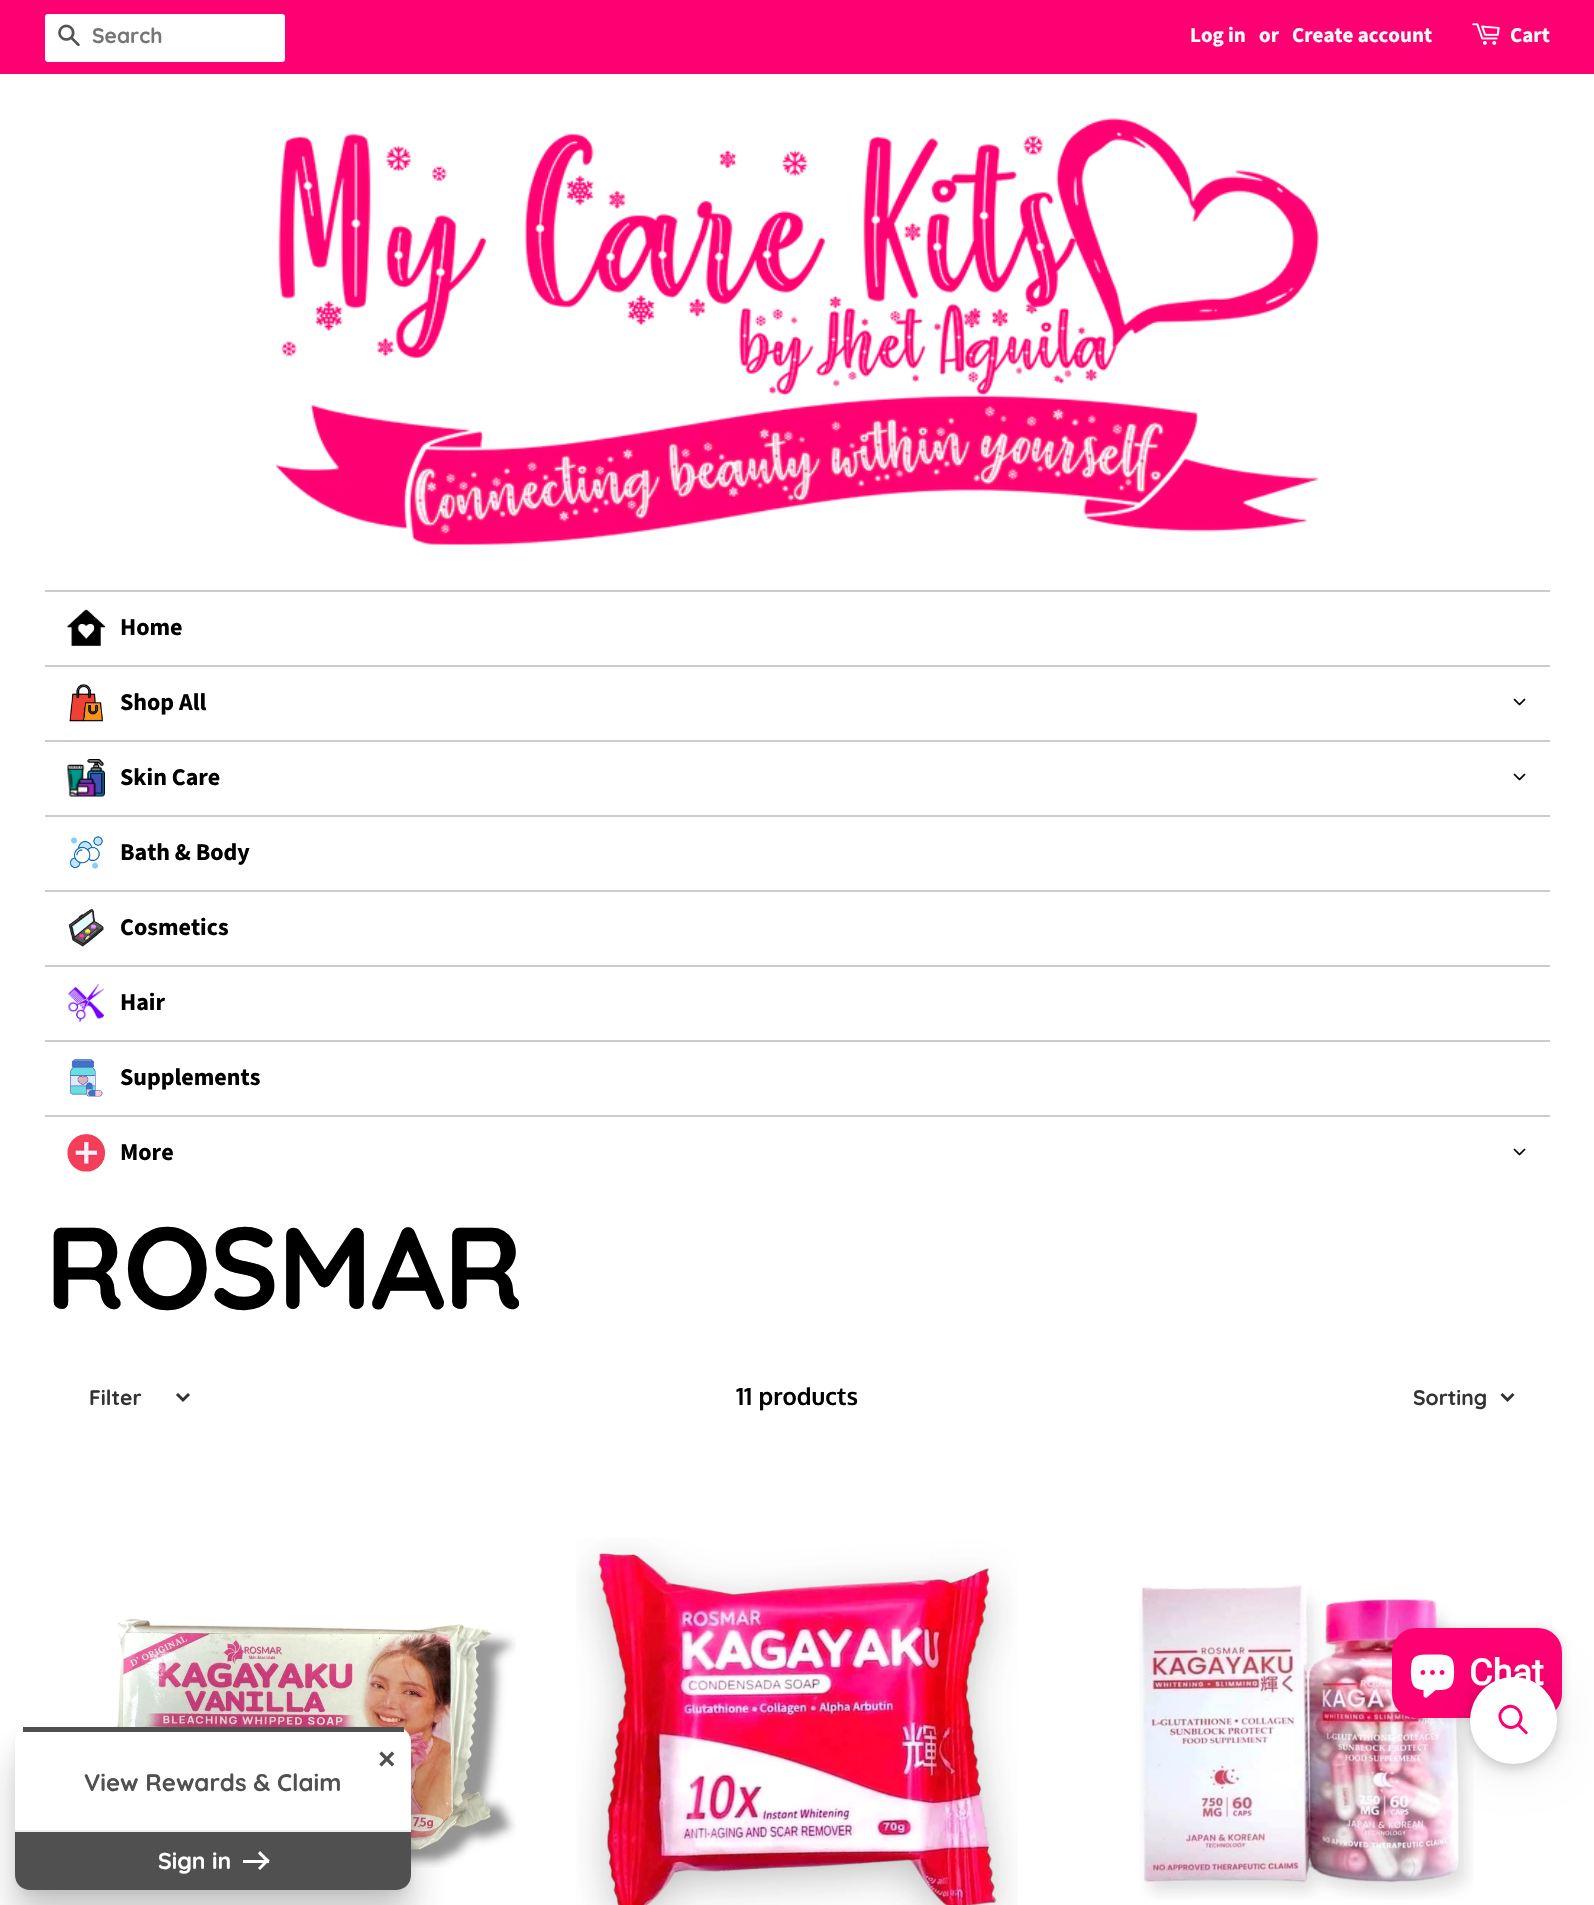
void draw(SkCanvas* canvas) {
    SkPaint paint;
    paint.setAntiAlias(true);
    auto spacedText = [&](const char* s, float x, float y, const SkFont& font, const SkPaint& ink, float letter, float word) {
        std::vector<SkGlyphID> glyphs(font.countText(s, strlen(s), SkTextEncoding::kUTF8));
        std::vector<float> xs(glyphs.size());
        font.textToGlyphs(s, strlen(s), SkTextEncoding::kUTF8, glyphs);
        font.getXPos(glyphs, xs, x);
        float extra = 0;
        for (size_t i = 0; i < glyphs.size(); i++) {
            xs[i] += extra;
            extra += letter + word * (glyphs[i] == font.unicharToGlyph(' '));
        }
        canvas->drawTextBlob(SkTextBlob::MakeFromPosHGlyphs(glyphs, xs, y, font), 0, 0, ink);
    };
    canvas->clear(0xFFFFFFFF);
    paint.setColor(0xFFFF0072);
    canvas->drawRect(SkRect::MakeXYWH(0, 0, 1594, 74), paint);
    paint.setColor(0xFFFFFFFF);
    canvas->drawRoundRect(SkRect::MakeXYWH(45, 14, 240, 48), 3, 3, paint);
    canvas->drawImageRect(SkImages::DeferredFromEncodedData(SkData::MakeFromFileName("img1.png")), SkRect::MakeXYWH(58, 24, 22, 23), SkSamplingOptions());
    SkFont font1(fontMgr->matchFamilyStyle("Quicksand", SkFontStyle::Bold()), 21);
    font1.setSubpixel(true);
    paint.setColor(0xFF757575);
    canvas->drawString("Search", 92, 43, font1, paint);
    SkFont font2(fontMgr->matchFamilyStyle("Source Sans Pro", SkFontStyle::Bold()), 21);
    font2.setSubpixel(true);
    paint.setColor(0xFFFFFFFF);
    canvas->drawString("Log in", 1190, 42, font2, paint);
    canvas->drawString("or", 1259, 42, font2, paint);
    canvas->drawString("Create account", 1292, 42, font2, paint);
    canvas->drawImageRect(SkImages::DeferredFromEncodedData(SkData::MakeFromFileName("img2.png")), SkRect::MakeXYWH(1472, 23, 28, 22), SkSamplingOptions());
    canvas->drawString("Cart", 1510, 42, font2, paint);
    canvas->drawImageRect(SkImages::DeferredFromEncodedData(SkData::MakeFromFileName("img3.png")), SkRect::MakeXYWH(276, 118, 1043, 427), SkSamplingOptions());
    paint.setColor(0xFFCCCCCC);
    canvas->drawRect(SkRect::MakeXYWH(45, 590, 1505, 2), paint);
    canvas->drawImageRect(SkImages::DeferredFromEncodedData(SkData::MakeFromFileName("img4.png")), SkRect::MakeXYWH(67, 609, 38, 38), SkSamplingOptions());
    SkFont font3(fontMgr->matchFamilyStyle("Source Sans Pro", SkFontStyle::Bold()), 24);
    font3.setSubpixel(true);
    paint.setColor(0xFF000000);
    canvas->drawString("Home", 120, 635, font3, paint);
    paint.setColor(0xFFCCCCCC);
    canvas->drawRect(SkRect::MakeXYWH(45, 665, 1505, 2), paint);
    canvas->drawImageRect(SkImages::DeferredFromEncodedData(SkData::MakeFromFileName("img5.png")), SkRect::MakeXYWH(69, 684, 35, 38), SkSamplingOptions());
    paint.setColor(0xFF000000);
    canvas->drawString("Shop All", 120, 710, font3, paint);
    canvas->drawImageRect(SkImages::DeferredFromEncodedData(SkData::MakeFromFileName("img6.png")), SkRect::MakeXYWH(1513, 698, 13, 8), SkSamplingOptions());
    paint.setColor(0xFFCCCCCC);
    canvas->drawRect(SkRect::MakeXYWH(45, 740, 1505, 2), paint);
    canvas->drawImageRect(SkImages::DeferredFromEncodedData(SkData::MakeFromFileName("img7.png")), SkRect::MakeXYWH(67, 759, 38, 38), SkSamplingOptions());
    paint.setColor(0xFF000000);
    canvas->drawString("Skin Care", 120, 785, font3, paint);
    canvas->drawImageRect(SkImages::DeferredFromEncodedData(SkData::MakeFromFileName("img6.png")), SkRect::MakeXYWH(1513, 773, 13, 8), SkSamplingOptions());
    paint.setColor(0xFFCCCCCC);
    canvas->drawRect(SkRect::MakeXYWH(45, 815, 1505, 2), paint);
    canvas->drawImageRect(SkImages::DeferredFromEncodedData(SkData::MakeFromFileName("img8.png")), SkRect::MakeXYWH(70, 836, 33, 33), SkSamplingOptions());
    paint.setColor(0xFF000000);
    canvas->drawString("Bath & Body", 120, 860, font3, paint);
    paint.setColor(0xFFCCCCCC);
    canvas->drawRect(SkRect::MakeXYWH(45, 890, 1505, 2), paint);
    canvas->drawImageRect(SkImages::DeferredFromEncodedData(SkData::MakeFromFileName("img9.png")), SkRect::MakeXYWH(68, 909, 36, 38), SkSamplingOptions());
    paint.setColor(0xFF000000);
    canvas->drawString("Cosmetics", 120, 935, font3, paint);
    paint.setColor(0xFFCCCCCC);
    canvas->drawRect(SkRect::MakeXYWH(45, 965, 1505, 2), paint);
    canvas->drawImageRect(SkImages::DeferredFromEncodedData(SkData::MakeFromFileName("img10.png")), SkRect::MakeXYWH(68, 984, 37, 38), SkSamplingOptions());
    paint.setColor(0xFF000000);
    canvas->drawString("Hair", 120, 1010, font3, paint);
    paint.setColor(0xFFCCCCCC);
    canvas->drawRect(SkRect::MakeXYWH(45, 1040, 1505, 2), paint);
    canvas->drawImageRect(SkImages::DeferredFromEncodedData(SkData::MakeFromFileName("img11.png")), SkRect::MakeXYWH(70, 1059, 33, 38), SkSamplingOptions());
    paint.setColor(0xFF000000);
    canvas->drawString("Supplements", 120, 1085, font3, paint);
    paint.setColor(0xFFCCCCCC);
    canvas->drawRect(SkRect::MakeXYWH(45, 1115, 1505, 2), paint);
    canvas->drawImageRect(SkImages::DeferredFromEncodedData(SkData::MakeFromFileName("img12.png")), SkRect::MakeXYWH(67, 1134, 38, 38), SkSamplingOptions());
    paint.setColor(0xFF000000);
    canvas->drawString("More", 120, 1160, font3, paint);
    canvas->drawImageRect(SkImages::DeferredFromEncodedData(SkData::MakeFromFileName("img6.png")), SkRect::MakeXYWH(1513, 1148, 13, 8), SkSamplingOptions());
    SkFont font4(fontMgr->matchFamilyStyle("Quicksand", SkFontStyle::Bold()), 116);
    font4.setSubpixel(true);
    spacedText("ROSMAR", 45, 1309, font4, paint, -1.5f, 0);
    paint.setStyle(SkPaint::kStroke_Style);
    paint.setStrokeWidth(3);
    paint.setColor(0xFF333333);
    canvas->drawPath(SkPathBuilder().moveTo(177, 1394).lineTo(183, 1400).lineTo(189, 1394).detach(), paint);
    paint.setStyle(SkPaint::kFill_Style);
    canvas->drawString("Filter", 89, 1405, font1, paint);
    SkFont font5(fontMgr->matchFamilyStyle("Oxygen", SkFontStyle::Bold()), 24);
    font5.setSubpixel(true);
    paint.setColor(0xFF000000);
    canvas->drawString("11 products", 736, 1405, font5, paint);
    paint.setStyle(SkPaint::kStroke_Style);
    paint.setColor(0xFF333333);
    canvas->drawPath(SkPathBuilder().moveTo(1501.5f, 1394).lineTo(1507.5f, 1400).lineTo(1513.5f, 1394).detach(), paint);
    paint.setStyle(SkPaint::kFill_Style);
    canvas->drawString("Sorting", 1413, 1405, font1, paint);
    canvas->drawImageRect(SkImages::DeferredFromEncodedData(SkData::MakeFromFileName("img13.png")), SkRect::MakeXYWH(97, 1618, 419, 250), SkSamplingOptions());
    canvas->drawImageRect(SkImages::DeferredFromEncodedData(SkData::MakeFromFileName("img14.png")), SkRect::MakeXYWH(576, 1538, 442, 367), SkSamplingOptions());
    canvas->drawImageRect(SkImages::DeferredFromEncodedData(SkData::MakeFromFileName("img15.png")), SkRect::MakeXYWH(1139, 1585, 335, 315), SkSamplingOptions());
    paint.setColor(0x26000000);
    paint.setMaskFilter(SkMaskFilter::MakeBlur(kNormal_SkBlurStyle, 4));
    canvas->drawRoundRect(SkRect::MakeXYWH(1392, 1628, 170, 90), 24, 24, paint);
    paint.setMaskFilter(nullptr);
    paint.setColor(0xFFFF0072);
    canvas->drawRoundRect(SkRect::MakeXYWH(1392, 1628, 170, 90), 24, 24, paint);
    canvas->drawImageRect(SkImages::DeferredFromEncodedData(SkData::MakeFromFileName("img16.png")), SkRect::MakeXYWH(1410, 1654, 45, 44), SkSamplingOptions());
    paint.setColor(0x0D000000);
    paint.setMaskFilter(SkMaskFilter::MakeBlur(kNormal_SkBlurStyle, 6));
    canvas->drawRoundRect(SkRect::MakeXYWH(1470, 1683, 87, 87), 43.5f, 43.5f, paint);
    paint.setMaskFilter(nullptr);
    paint.setColor(0x26000000);
    paint.setMaskFilter(SkMaskFilter::MakeBlur(kNormal_SkBlurStyle, 6));
    canvas->drawRoundRect(SkRect::MakeXYWH(1470, 1680, 87, 87), 43.5f, 43.5f, paint);
    paint.setMaskFilter(nullptr);
    paint.setColor(0x1A000000);
    paint.setMaskFilter(SkMaskFilter::MakeBlur(kNormal_SkBlurStyle, 22.5f));
    canvas->drawRoundRect(SkRect::MakeXYWH(1470, 1677, 87, 87), 43.5f, 43.5f, paint);
    paint.setMaskFilter(nullptr);
    paint.setColor(0xFFFFFFFF);
    canvas->drawCircle(1513.5f, 1720.5f, 43.5f, paint);
    paint.setStyle(SkPaint::kStroke_Style);
    paint.setColor(0xFFFF0072);
    canvas->drawPath(SkPathBuilder().moveTo(1503, 1709.5f).cubicTo(1513, 1699.5f, 1527.5f, 1714.5f, 1518, 1724.5f).cubicTo(1508, 1734, 1493.5f, 1719, 1503, 1709.5f).close().detach(), paint);
    paint.setStyle(SkPaint::kFill_Style);
    canvas->drawPath(SkPathBuilder().moveTo(1517, 1725.5f).lineTo(1519, 1723.5f).lineTo(1527.5f, 1732).cubicTo(1528.5f, 1733.5f, 1526.5f, 1735, 1525.5f, 1734).close().detach(), paint);
    SkFont font6(fontMgr->matchFamilyStyle("Roboto", SkFontStyle::Bold()), 36);
    font6.setSubpixel(true);
    paint.setColor(0xFFFFFFFF);
    canvas->drawString("Chat", 1469, 1685, font6, paint);
    paint.setColor(0x0F000000);
    paint.setMaskFilter(SkMaskFilter::MakeBlur(kNormal_SkBlurStyle, 3));
    canvas->drawRoundRect(SkRect::MakeXYWH(15, 1731, 396, 164), 15, 15, paint);
    paint.setMaskFilter(nullptr);
    paint.setColor(0x3D262626);
    paint.setMaskFilter(SkMaskFilter::MakeBlur(kNormal_SkBlurStyle, 18));
    canvas->drawRoundRect(SkRect::MakeXYWH(15, 1757, 396, 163), 15, 15, paint);
    paint.setMaskFilter(nullptr);
    paint.setColor(0xFFFFFFFF);
    canvas->drawRoundRect(SkRect::MakeXYWH(15, 1727, 396, 163), 15, 15, paint);
    paint.setColor(0xFF505050);
    canvas->drawRect(SkRect::MakeXYWH(23, 1727, 381, 5), paint);
    SkFont font7(fontMgr->matchFamilyStyle("Liberation Sans", SkFontStyle::Bold()), 30);
    font7.setSubpixel(true);
    canvas->drawString("×", 378, 1769, font7, paint);
    SkFont font8(fontMgr->matchFamilyStyle("Quicksand", SkFontStyle::Bold()), 24);
    font8.setSubpixel(true);
    canvas->drawString("View Rewards & Claim", 84, 1791, font8, paint);
    canvas->drawPath(SkPathBuilder().moveTo(15, 1830).lineTo(411, 1830).lineTo(411, 1875).cubicTo(411, 1883.5f, 404.5f, 1890, 396, 1890).lineTo(30, 1890).cubicTo(21.5f, 1890, 15, 1883.5f, 15, 1875).close().detach(), paint);
    paint.setColor(0xFFEEEEEE);
    canvas->drawRect(SkRect::MakeXYWH(15, 1830, 396, 2), paint);
    SkFont font9(fontMgr->matchFamilyStyle("Quicksand", SkFontStyle::Bold()), 23);
    font9.setSubpixel(true);
    paint.setColor(0xFFFFFFFF);
    canvas->drawString("Sign in", 158, 1869, font9, paint);
    canvas->drawRect(SkRect::MakeXYWH(243, 1860, 26, 3), paint);
    canvas->drawPath(SkPathBuilder().moveTo(258, 1853.5f).lineTo(260, 1851).lineTo(269.5f, 1860.5f).lineTo(267.5f, 1863).close().detach(), paint);
    canvas->drawPath(SkPathBuilder().moveTo(258, 1868).lineTo(267.5f, 1858.5f).lineTo(269.5f, 1860.5f).lineTo(260, 1870).close().detach(), paint);
}
